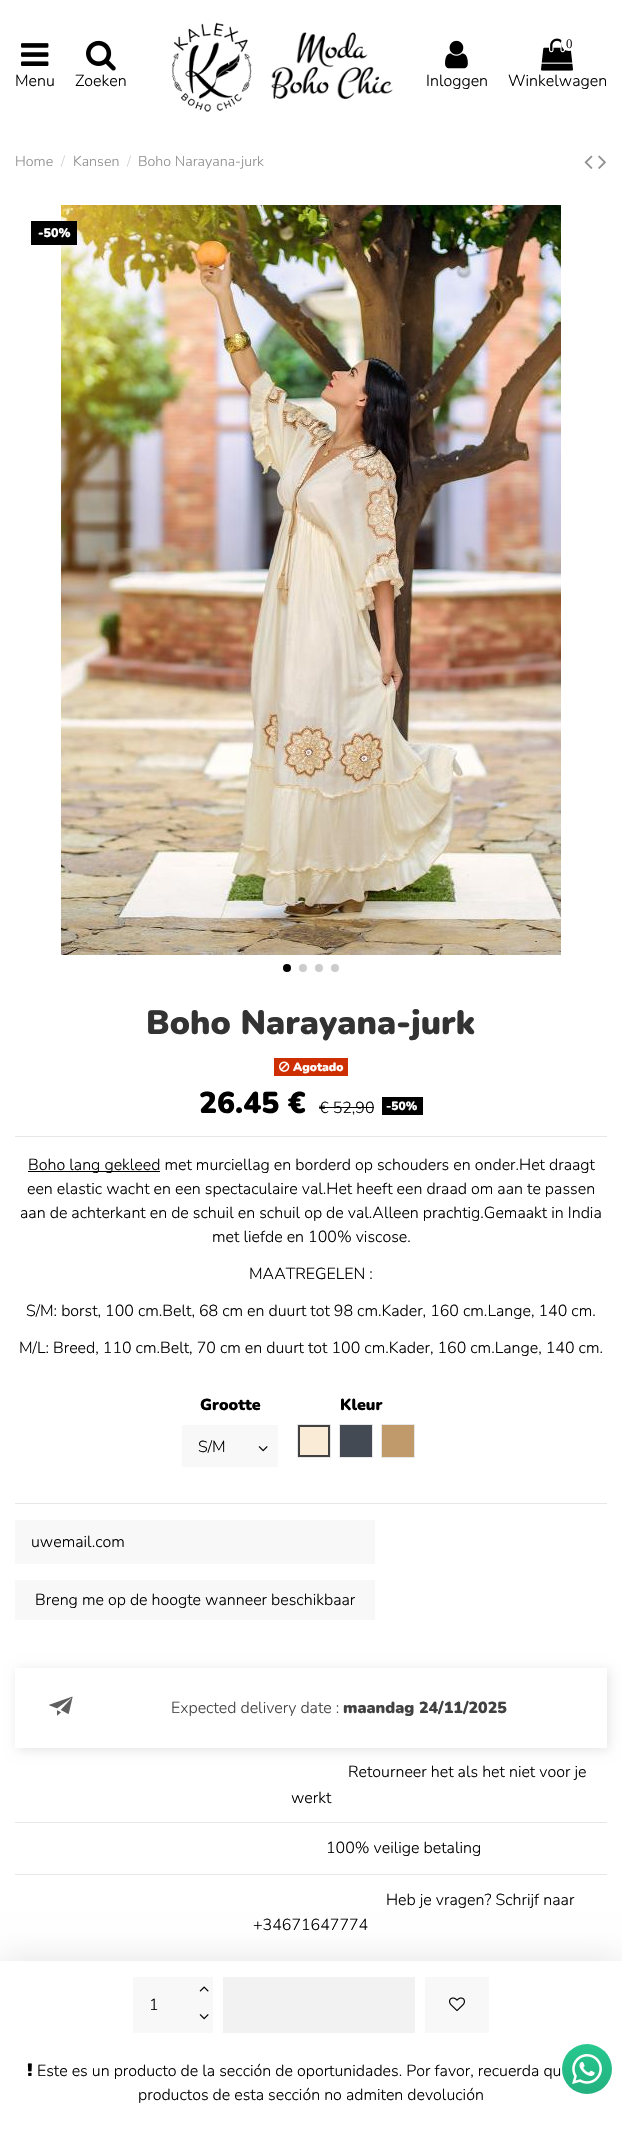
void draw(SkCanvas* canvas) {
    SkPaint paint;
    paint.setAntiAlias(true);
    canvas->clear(0xFFFFFFFF);
    canvas->drawImageRect(SkImages::DeferredFromEncodedData(SkData::MakeFromFileName("img1.png")), SkRect::MakeXYWH(21, 43, 28, 23), SkSamplingOptions());
    SkFont font1(fontMgr->matchFamilyStyle("Nunito", SkFontStyle(300, SkFontStyle::kNormal_Width, SkFontStyle::kUpright_Slant)), 16);
    font1.setSubpixel(true);
    paint.setColor(0xFF000000);
    canvas->drawString("Menu", 15, 86, font1, paint);
    canvas->drawImageRect(SkImages::DeferredFromEncodedData(SkData::MakeFromFileName("img2.png")), SkRect::MakeXYWH(86, 40, 30, 31), SkSamplingOptions());
    canvas->drawString("Zoeken", 75, 86, font1, paint);
    canvas->drawImageRect(SkImages::DeferredFromEncodedData(SkData::MakeFromFileName("img3.png")), SkRect::MakeXYWH(172, 22, 221, 90), SkSamplingOptions());
    canvas->drawImageRect(SkImages::DeferredFromEncodedData(SkData::MakeFromFileName("img4.png")), SkRect::MakeXYWH(445, 40, 23, 29), SkSamplingOptions());
    canvas->drawString("Inloggen", 426, 86, font1, paint);
    canvas->drawImageRect(SkImages::DeferredFromEncodedData(SkData::MakeFromFileName("img5.png")), SkRect::MakeXYWH(541, 38, 32, 33), SkSamplingOptions());
    paint.setColor(0xFFFFFFFF);
    canvas->drawCircle(569, 43, 8, paint);
    SkFont font2(fontMgr->matchFamilyStyle("Liberation Serif", SkFontStyle::Normal()), 13);
    font2.setSubpixel(true);
    paint.setColor(0xFF282424);
    canvas->drawString("0", 566, 48, font2, paint);
    paint.setColor(0xFF000000);
    canvas->drawString("Winkelwagen", 508, 86, font1, paint);
    SkFont font3(fontMgr->matchFamilyStyle("Nunito", SkFontStyle(300, SkFontStyle::kNormal_Width, SkFontStyle::kUpright_Slant)), 14.25f);
    font3.setSubpixel(true);
    paint.setColor(0xFF8F8F8F);
    canvas->drawString("Home", 15, 166, font3, paint);
    paint.setColor(0xFFD2D2D2);
    canvas->drawString("/", 61, 166, font3, paint);
    paint.setColor(0xFF8F8F8F);
    canvas->drawString("Kansen", 73, 166, font3, paint);
    paint.setColor(0xFFD2D2D2);
    canvas->drawString("/", 127, 166, font3, paint);
    paint.setColor(0xFF8F8F8F);
    canvas->drawString("Boho Narayana-jurk", 138, 166, font3, paint);
    canvas->drawImageRect(SkImages::DeferredFromEncodedData(SkData::MakeFromFileName("img6.png")), SkRect::MakeXYWH(584, 155, 9, 14), SkSamplingOptions());
    canvas->drawImageRect(SkImages::DeferredFromEncodedData(SkData::MakeFromFileName("img7.png")), SkRect::MakeXYWH(598, 155, 8, 14), SkSamplingOptions());
    canvas->drawImageRect(SkImages::DeferredFromEncodedData(SkData::MakeFromFileName("img8.png")), SkRect::MakeXYWH(61, 205, 500, 750), SkSamplingOptions());
    paint.setColor(0xFF000000);
    canvas->drawRect(SkRect::MakeXYWH(31, 221, 46, 24), paint);
    SkFont font4(fontMgr->matchFamilyStyle("Nunito", SkFontStyle(900, SkFontStyle::kNormal_Width, SkFontStyle::kUpright_Slant)), 12.5f);
    font4.setSubpixel(true);
    paint.setColor(0xFFFFFFFF);
    canvas->drawString("-50%", 38, 237, font4, paint);
    paint.setColor(0xFF000000);
    canvas->drawCircle(287, 968, 4, paint);
    paint.setColor(0xFFCCCCCC);
    canvas->drawCircle(303, 968, 4, paint);
    canvas->drawCircle(319, 968, 4, paint);
    canvas->drawCircle(335, 968, 4, paint);
    paint.setColor(0xFFE7E7E7);
    canvas->drawRect(SkRect::MakeXYWH(15, 1136, 592, 1), paint);
    SkFont font5(fontMgr->matchFamilyStyle("Nunito", SkFontStyle(900, SkFontStyle::kNormal_Width, SkFontStyle::kUpright_Slant)), 33.75f);
    font5.setSubpixel(true);
    paint.setColor(0xFF333333);
    canvas->drawString("Boho Narayana-jurk", 146, 1034, font5, paint);
    paint.setColor(0xFFCE2F02);
    canvas->drawRect(SkRect::MakeXYWH(274, 1058, 74, 18), paint);
    canvas->drawImageRect(SkImages::DeferredFromEncodedData(SkData::MakeFromFileName("img9.png")), SkRect::MakeXYWH(279, 1061, 11, 11), SkSamplingOptions());
    SkFont font6(fontMgr->matchFamilyStyle("Nunito", SkFontStyle(900, SkFontStyle::kNormal_Width, SkFontStyle::kUpright_Slant)), 12);
    font6.setSubpixel(true);
    paint.setColor(0xFFFFFFFF);
    canvas->drawString("Agotado", 293, 1071, font6, paint);
    SkFont font7(fontMgr->matchFamilyStyle("Nunito", SkFontStyle(900, SkFontStyle::kNormal_Width, SkFontStyle::kUpright_Slant)), 30);
    font7.setSubpixel(true);
    paint.setColor(0xFF000000);
    canvas->drawString("26.45 €", 199, 1113, font7, paint);
    canvas->drawString("€ 52,90", 319, 1113, font1, paint);
    canvas->drawRect(SkRect::MakeXYWH(319, 1107, 55, 1), paint);
    canvas->drawRect(SkRect::MakeXYWH(382, 1097, 41, 18), paint);
    paint.setColor(0xFFFFFFFF);
    canvas->drawString("-50%", 386, 1110, font6, paint);
    paint.setColor(0xFF000000);
    canvas->drawRect(SkRect::MakeXYWH(28, 1171, 132, 1), paint);
    canvas->drawString("Boho lang gekleed met murciellag en borderd op schouders en onder.Het draagt", 28, 1170, font1, paint);
    canvas->drawString("een elastic wacht en een spectaculaire val.Het heeft een draad om aan te passen", 27, 1194, font1, paint);
    canvas->drawString("aan de achterkant en de schuil en schuil op de val.Alleen prachtig.Gemaakt in India", 20, 1218, font1, paint);
    canvas->drawString("met liefde en 100% viscose.", 212, 1242, font1, paint);
    canvas->drawString("MAATREGELEN :", 249, 1279, font1, paint);
    canvas->drawString("S/M: borst, 100 cm.Belt, 68 cm en duurt tot 98 cm.Kader, 160 cm.Lange, 140 cm.", 26, 1316, font1, paint);
    canvas->drawString("M/L: Breed, 110 cm.Belt, 70 cm en duurt tot 100 cm.Kader, 160 cm.Lange, 140 cm.", 19, 1353, font1, paint);
    SkFont font8(fontMgr->matchFamilyStyle("Nunito", SkFontStyle(900, SkFontStyle::kNormal_Width, SkFontStyle::kUpright_Slant)), 16);
    font8.setSubpixel(true);
    canvas->drawString("Grootte", 200, 1410, font8, paint);
    paint.setColor(0xFFF8F8F8);
    canvas->drawRect(SkRect::MakeXYWH(182, 1425, 96, 42), paint);
    paint.setColor(0xFF000000);
    canvas->drawString("S/M", 198, 1452, font1, paint);
    canvas->drawImageRect(SkImages::DeferredFromEncodedData(SkData::MakeFromFileName("img10.png")), SkRect::MakeXYWH(258, 1446, 10, 6), SkSamplingOptions());
    canvas->drawString("Kleur", 340, 1410, font8, paint);
    paint.setColor(0xFFFAEBD7);
    canvas->drawRect(SkRect::MakeXYWH(299, 1426, 30, 30), paint);
    paint.setStyle(SkPaint::kStroke_Style);
    paint.setStrokeWidth(2);
    paint.setColor(0xFF414141);
    canvas->drawRect(SkRect::MakeXYWH(299, 1426, 30, 30), paint);
    paint.setStrokeWidth(1);
    paint.setColor(0xFFE7E7E7);
    canvas->drawRect(SkRect::MakeXYWH(297.5f, 1424.5f, 33, 33), paint);
    paint.setStyle(SkPaint::kFill_Style);
    paint.setColor(0xFF434A54);
    canvas->drawRect(SkRect::MakeXYWH(339.5f, 1424.5f, 33, 33), paint);
    paint.setStyle(SkPaint::kStroke_Style);
    paint.setColor(0xFFE7E7E7);
    canvas->drawRect(SkRect::MakeXYWH(339.5f, 1424.5f, 33, 33), paint);
    paint.setStyle(SkPaint::kFill_Style);
    paint.setColor(0xFFC19A6B);
    canvas->drawRect(SkRect::MakeXYWH(381.5f, 1424.5f, 33, 33), paint);
    paint.setStyle(SkPaint::kStroke_Style);
    paint.setColor(0xFFE7E7E7);
    canvas->drawRect(SkRect::MakeXYWH(381.5f, 1424.5f, 33, 33), paint);
    paint.setStyle(SkPaint::kFill_Style);
    paint.setColor(0x17000000);
    paint.setMaskFilter(SkMaskFilter::MakeBlur(kNormal_SkBlurStyle, 15));
    canvas->drawRect(SkRect::MakeXYWH(0, 1957, 622, 170), paint);
    paint.setMaskFilter(nullptr);
    paint.setColor(0xFFFFFFFF);
    canvas->drawRect(SkRect::MakeXYWH(0, 1961, 622, 170), paint);
    paint.setColor(0xFFF8F8F8);
    canvas->drawRect(SkRect::MakeXYWH(133, 1977, 60, 56), paint);
    paint.setColor(0xFF000000);
    canvas->drawString("1", 149, 2010, font1, paint);
    paint.setColor(0xFFF8F8F8);
    canvas->drawRect(SkRect::MakeXYWH(193, 1977, 20, 56), paint);
    canvas->drawImageRect(SkImages::DeferredFromEncodedData(SkData::MakeFromFileName("img11.png")), SkRect::MakeXYWH(199, 1986, 10, 6), SkSamplingOptions());
    canvas->drawImageRect(SkImages::DeferredFromEncodedData(SkData::MakeFromFileName("img10.png")), SkRect::MakeXYWH(199, 2014, 10, 6), SkSamplingOptions());
    paint.setColor(0xFFF2F2F2);
    canvas->drawRect(SkRect::MakeXYWH(223, 1977, 192, 56), paint);
    paint.setColor(0xFFF8F8F8);
    canvas->drawRect(SkRect::MakeXYWH(425, 1977, 64, 56), paint);
    canvas->drawImageRect(SkImages::DeferredFromEncodedData(SkData::MakeFromFileName("img12.png")), SkRect::MakeXYWH(449, 1997, 16, 15), SkSamplingOptions());
    canvas->drawImageRect(SkImages::DeferredFromEncodedData(SkData::MakeFromFileName("img13.png")), SkRect::MakeXYWH(27, 2063, 5, 13), SkSamplingOptions());
    paint.setColor(0xFF000000);
    canvas->drawString("Este es un producto de la sección de oportunidades. Por favor, recuerda qu", 37, 2076, font1, paint);
    canvas->drawString("productos de esta sección no admiten devolución", 138, 2100, font1, paint);
    paint.setColor(0xFFE7E7E7);
    canvas->drawRect(SkRect::MakeXYWH(15, 1503, 592, 1), paint);
    paint.setColor(0xFFF8F8F8);
    canvas->drawRect(SkRect::MakeXYWH(15, 1520, 360, 44), paint);
    paint.setColor(0xFF000000);
    canvas->drawString("uwemail.com", 31, 1547, font1, paint);
    paint.setColor(0xFFF8F8F8);
    canvas->drawRect(SkRect::MakeXYWH(15, 1580, 360, 40), paint);
    paint.setColor(0xFF000000);
    canvas->drawString("Breng me op de hoogte wanneer beschikbaar", 35, 1605, font1, paint);
    canvas->save();
    canvas->clipPath(SkPathBuilder(SkPathFillType::kEvenOdd).moveTo(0, 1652).lineTo(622, 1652).lineTo(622, 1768).lineTo(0, 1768).close().moveTo(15, 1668).lineTo(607, 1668).lineTo(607, 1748).lineTo(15, 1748).close().detach(), true);
    paint.setColor(0x1A000000);
    paint.setMaskFilter(SkMaskFilter::MakeBlur(kNormal_SkBlurStyle, 5.5f));
    canvas->drawRect(SkRect::MakeXYWH(17, 1670, 592, 80), paint);
    paint.setMaskFilter(nullptr);
    canvas->restore();
    canvas->drawImageRect(SkImages::DeferredFromEncodedData(SkData::MakeFromFileName("img14.png")), SkRect::MakeXYWH(49, 1696, 24, 20), SkSamplingOptions());
    paint.setColor(0xFF414141);
    canvas->drawString("Expected delivery date :", 171, 1713, font1, paint);
    canvas->drawString("maandag 24/11/2025", 343, 1713, font8, paint);
    paint.setColor(0xFFE7E7E7);
    canvas->drawRect(SkRect::MakeXYWH(15, 1822, 592, 1), paint);
    paint.setColor(0xFF000000);
    canvas->drawString("Retourneer het als het niet voor je", 348, 1777, font1, paint);
    canvas->drawString("werkt", 291, 1803, font1, paint);
    paint.setColor(0xFFE7E7E7);
    canvas->drawRect(SkRect::MakeXYWH(15, 1874, 592, 1), paint);
    paint.setColor(0xFF000000);
    canvas->drawString("100% veilige betaling", 326, 1853, font1, paint);
    canvas->drawString("Heb je vragen? Schrijf naar", 386, 1905, font1, paint);
    canvas->drawString("+34671647774", 253, 1930, font1, paint);
    {
        const SkColor colors[] = {0xFF23B17F, 0xFF27C88F};
        const float stops[] = {0, 1};
        const SkPoint ends[] = {{587, 2094}, {587, 2044}};
        paint.setShader(SkGradientShader::MakeLinear(ends, colors, stops, 2, SkTileMode::kClamp));
        paint.setAlpha(255);
    }
    canvas->drawCircle(587, 2069, 25, paint);
    canvas->drawImageRect(SkImages::DeferredFromEncodedData(SkData::MakeFromFileName("img15.png")), SkRect::MakeXYWH(572, 2054, 30, 30), SkSamplingOptions());
}
